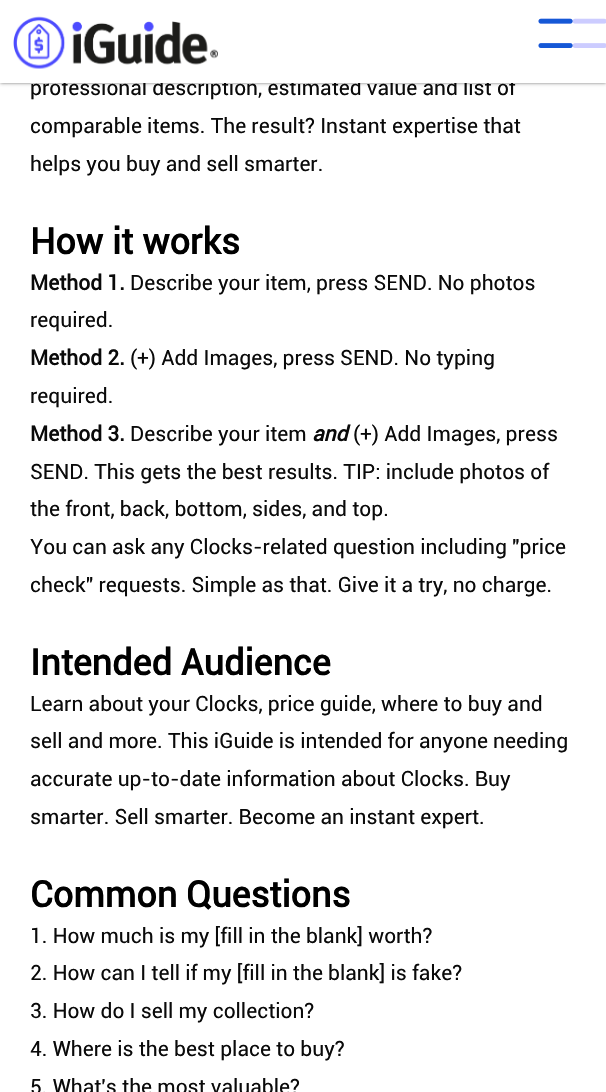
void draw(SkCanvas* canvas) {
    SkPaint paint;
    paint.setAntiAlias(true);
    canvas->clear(0xFFFFFFFF);
    paint.setColor(0x1F000000);
    paint.setMaskFilter(SkMaskFilter::MakeBlur(kNormal_SkBlurStyle, 2));
    canvas->drawRect(SkRect::MakeXYWH(0, 2, 606, 82), paint);
    paint.setMaskFilter(nullptr);
    paint.setColor(0x24000000);
    paint.setMaskFilter(SkMaskFilter::MakeBlur(kNormal_SkBlurStyle, 1));
    canvas->drawRect(SkRect::MakeXYWH(0, 2, 606, 82), paint);
    paint.setMaskFilter(nullptr);
    paint.setColor(0x33000000);
    paint.setMaskFilter(SkMaskFilter::MakeBlur(kNormal_SkBlurStyle, 1));
    canvas->drawRect(SkRect::MakeXYWH(2, 3, 603, 80), paint);
    paint.setMaskFilter(nullptr);
    SkFont font1(fontMgr->matchFamilyStyle("Roboto", SkFontStyle::Normal()), 21);
    font1.setSubpixel(true);
    paint.setColor(0xFF0A0A0A);
    canvas->drawString("professional description, estimated value and list of", 30, 95, font1, paint);
    paint.setColor(0xFFFFFFFF);
    canvas->drawRect(SkRect::MakeXYWH(0, 0, 606, 83), paint);
    canvas->drawImageRect(SkImages::DeferredFromEncodedData(SkData::MakeFromFileName("img1.png")), SkRect::MakeXYWH(13, 16, 205, 53), SkSamplingOptions());
    canvas->drawImageRect(SkImages::DeferredFromEncodedData(SkData::MakeFromFileName("img2.png")), SkRect::MakeXYWH(538, 18, 68, 30), SkSamplingOptions());
    canvas->drawImageRect(SkImages::DeferredFromEncodedData(SkData::MakeFromFileName("img3.png")), SkRect::MakeXYWH(538, 18, 35, 30), SkSamplingOptions());
    paint.setColor(0xFF0A0A0A);
    canvas->drawString("comparable items. The result? Instant expertise that", 30, 133, font1, paint);
    canvas->drawString("helps you buy and sell smarter.", 30, 171, font1, paint);
    SkFont font2(fontMgr->matchFamilyStyle("Roboto", SkFontStyle::Bold()), 36);
    font2.setSubpixel(true);
    paint.setColor(0xFF000000);
    canvas->drawString("How it works", 30, 254, font2, paint);
    SkFont font3(fontMgr->matchFamilyStyle("Roboto", SkFontStyle::Bold()), 21);
    font3.setSubpixel(true);
    paint.setColor(0xFF0A0A0A);
    canvas->drawString("Method 1.", 30, 290, font3, paint);
    canvas->drawString("Describe your item, press SEND. No photos", 130, 290, font1, paint);
    canvas->drawString("required.", 30, 327, font1, paint);
    canvas->drawString("Method 2.", 30, 365, font3, paint);
    canvas->drawString("(+) Add Images, press SEND. No typing", 130, 365, font1, paint);
    canvas->drawString("required.", 30, 403, font1, paint);
    canvas->drawString("Method 3.", 30, 441, font3, paint);
    canvas->drawString("Describe your item", 130, 441, font1, paint);
    SkFont font4(fontMgr->matchFamilyStyle("Roboto", SkFontStyle::BoldItalic()), 21);
    font4.setSubpixel(true);
    canvas->drawString("and", 312, 441, font4, paint);
    canvas->drawString("(+) Add Images, press", 353, 441, font1, paint);
    canvas->drawString("SEND. This gets the best results. TIP: include photos of", 30, 479, font1, paint);
    canvas->drawString("the front, back, bottom, sides, and top.", 30, 516, font1, paint);
    canvas->drawString("You can ask any Clocks-related question including \"price", 30, 554, font1, paint);
    canvas->drawString("check\" requests. Simple as that. Give it a try, no charge.", 30, 592, font1, paint);
    paint.setColor(0xFF000000);
    canvas->drawString("Intended Audience", 30, 675, font2, paint);
    paint.setColor(0xFF0A0A0A);
    canvas->drawString("Learn about your Clocks, price guide, where to buy and", 30, 711, font1, paint);
    canvas->drawString("sell and more. This iGuide is intended for anyone needing", 30, 748, font1, paint);
    canvas->drawString("accurate up-to-date information about Clocks. Buy", 30, 786, font1, paint);
    canvas->drawString("smarter. Sell smarter. Become an instant expert.", 30, 824, font1, paint);
    paint.setColor(0xFF000000);
    canvas->drawString("Common Questions", 30, 907, font2, paint);
    paint.setColor(0xFF0A0A0A);
    canvas->drawString("1. How much is my [fill in the blank] worth?", 30, 943, font1, paint);
    canvas->drawString("2. How can I tell if my [fill in the blank] is fake?", 30, 980, font1, paint);
    canvas->drawString("3. How do I sell my collection?", 30, 1018, font1, paint);
    canvas->drawString("4. Where is the best place to buy?", 30, 1056, font1, paint);
    canvas->drawString("5. What's the most valuable?", 30, 1094, font1, paint);
}
